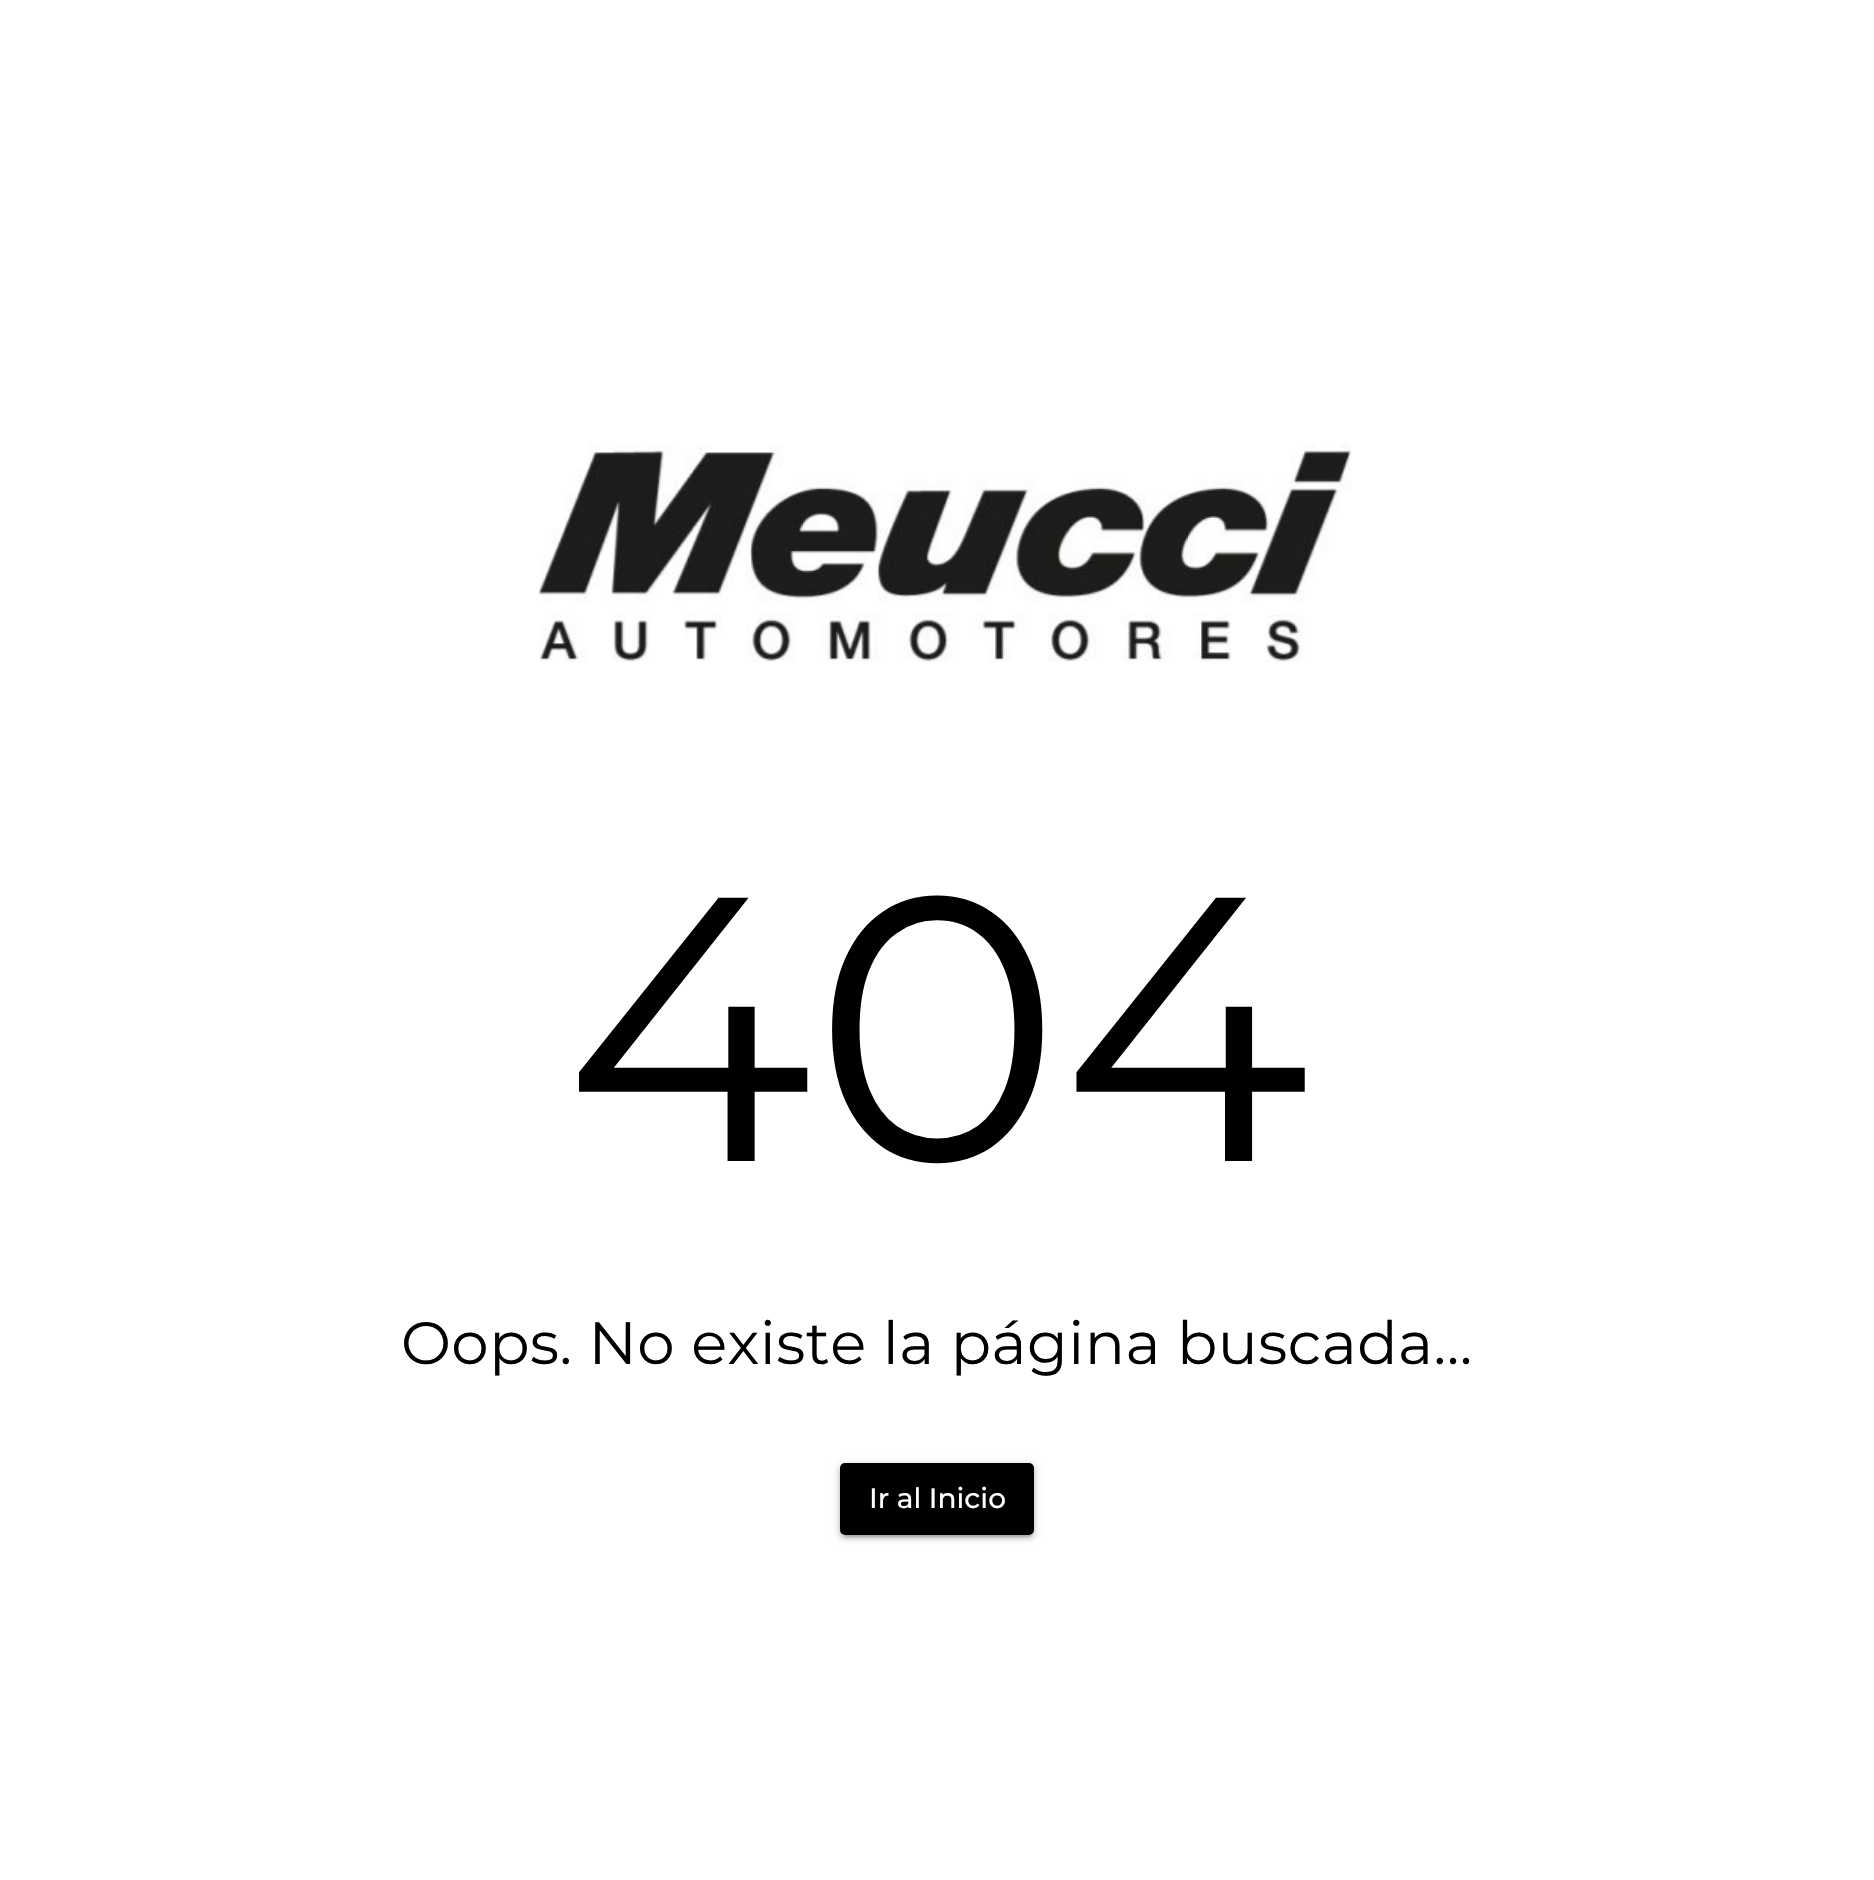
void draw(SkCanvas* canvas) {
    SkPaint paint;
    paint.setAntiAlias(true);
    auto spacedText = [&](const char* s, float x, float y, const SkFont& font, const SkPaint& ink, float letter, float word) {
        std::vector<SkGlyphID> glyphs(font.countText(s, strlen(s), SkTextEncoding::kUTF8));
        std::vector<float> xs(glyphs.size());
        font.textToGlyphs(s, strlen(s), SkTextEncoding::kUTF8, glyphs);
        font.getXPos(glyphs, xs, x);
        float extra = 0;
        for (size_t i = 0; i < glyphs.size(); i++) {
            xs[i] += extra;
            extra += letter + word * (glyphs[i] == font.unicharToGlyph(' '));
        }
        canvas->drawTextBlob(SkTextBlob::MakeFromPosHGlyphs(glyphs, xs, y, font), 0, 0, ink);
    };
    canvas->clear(0xFFFFFFFF);
    canvas->drawImageRect(SkImages::DeferredFromEncodedData(SkData::MakeFromFileName("img1.png")), SkRect::MakeXYWH(539, 443, 813, 219), SkSamplingOptions());
    SkFont font1(fontMgr->matchFamilyStyle("Montserrat", SkFontStyle::Normal()), 376);
    font1.setSubpixel(true);
    paint.setColor(0xFF000000);
    canvas->drawString("404", 564, 1161, font1, paint);
    SkFont font2(fontMgr->matchFamilyStyle("Montserrat", SkFontStyle::Normal()), 59.5f);
    font2.setSubpixel(true);
    spacedText("Oops. No existe la página buscada...", 401, 1364, font2, paint, 0.45f, 0);
    canvas->drawRoundRect(SkRect::MakeXYWH(840, 1463, 194, 72), 5, 5, paint);
    canvas->save();
    canvas->clipPath(SkPathBuilder(SkPathFillType::kEvenOdd).moveTo(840, 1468).lineTo(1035, 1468).lineTo(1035, 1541).lineTo(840, 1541).close().moveTo(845, 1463).lineTo(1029, 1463).cubicTo(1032, 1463, 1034, 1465, 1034, 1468).lineTo(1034, 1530).cubicTo(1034, 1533, 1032, 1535, 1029, 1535).lineTo(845, 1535).cubicTo(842, 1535, 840, 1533, 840, 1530).lineTo(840, 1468).cubicTo(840, 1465, 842, 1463, 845, 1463).close().detach(), true);
    paint.setColor(0x1F000000);
    paint.setMaskFilter(SkMaskFilter::MakeBlur(kNormal_SkBlurStyle, 1));
    canvas->drawRoundRect(SkRect::MakeXYWH(844, 1472, 187, 65), 2, 2, paint);
    paint.setMaskFilter(nullptr);
    canvas->restore();
    canvas->save();
    canvas->clipPath(SkPathBuilder(SkPathFillType::kEvenOdd).moveTo(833, 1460).lineTo(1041, 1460).lineTo(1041, 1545).lineTo(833, 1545).close().moveTo(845, 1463).lineTo(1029, 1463).cubicTo(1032, 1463, 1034, 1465, 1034, 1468).lineTo(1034, 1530).cubicTo(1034, 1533, 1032, 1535, 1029, 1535).lineTo(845, 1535).cubicTo(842, 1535, 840, 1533, 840, 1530).lineTo(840, 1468).cubicTo(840, 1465, 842, 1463, 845, 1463).close().detach(), true);
    paint.setColor(0x24000000);
    paint.setMaskFilter(SkMaskFilter::MakeBlur(kNormal_SkBlurStyle, 2));
    canvas->drawRoundRect(SkRect::MakeXYWH(840, 1467, 194, 71), 5, 5, paint);
    paint.setMaskFilter(nullptr);
    canvas->restore();
    canvas->save();
    canvas->clipPath(SkPathBuilder(SkPathFillType::kEvenOdd).moveTo(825, 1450).lineTo(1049, 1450).lineTo(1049, 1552).lineTo(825, 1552).close().moveTo(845, 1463).lineTo(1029, 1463).cubicTo(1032, 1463, 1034, 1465, 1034, 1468).lineTo(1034, 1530).cubicTo(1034, 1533, 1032, 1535, 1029, 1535).lineTo(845, 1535).cubicTo(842, 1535, 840, 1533, 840, 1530).lineTo(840, 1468).cubicTo(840, 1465, 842, 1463, 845, 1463).close().detach(), true);
    paint.setColor(0x33000000);
    paint.setMaskFilter(SkMaskFilter::MakeBlur(kNormal_SkBlurStyle, 4.5f));
    canvas->drawRoundRect(SkRect::MakeXYWH(840, 1465, 194, 72), 5, 5, paint);
    paint.setMaskFilter(nullptr);
    canvas->restore();
    SkFont font3(fontMgr->matchFamilyStyle("Montserrat", SkFontStyle(500, SkFontStyle::kNormal_Width, SkFontStyle::kUpright_Slant)), 28);
    font3.setSubpixel(true);
    paint.setColor(0xFFFFFFFF);
    canvas->drawString("Ir al Inicio", 869, 1508, font3, paint);
}
